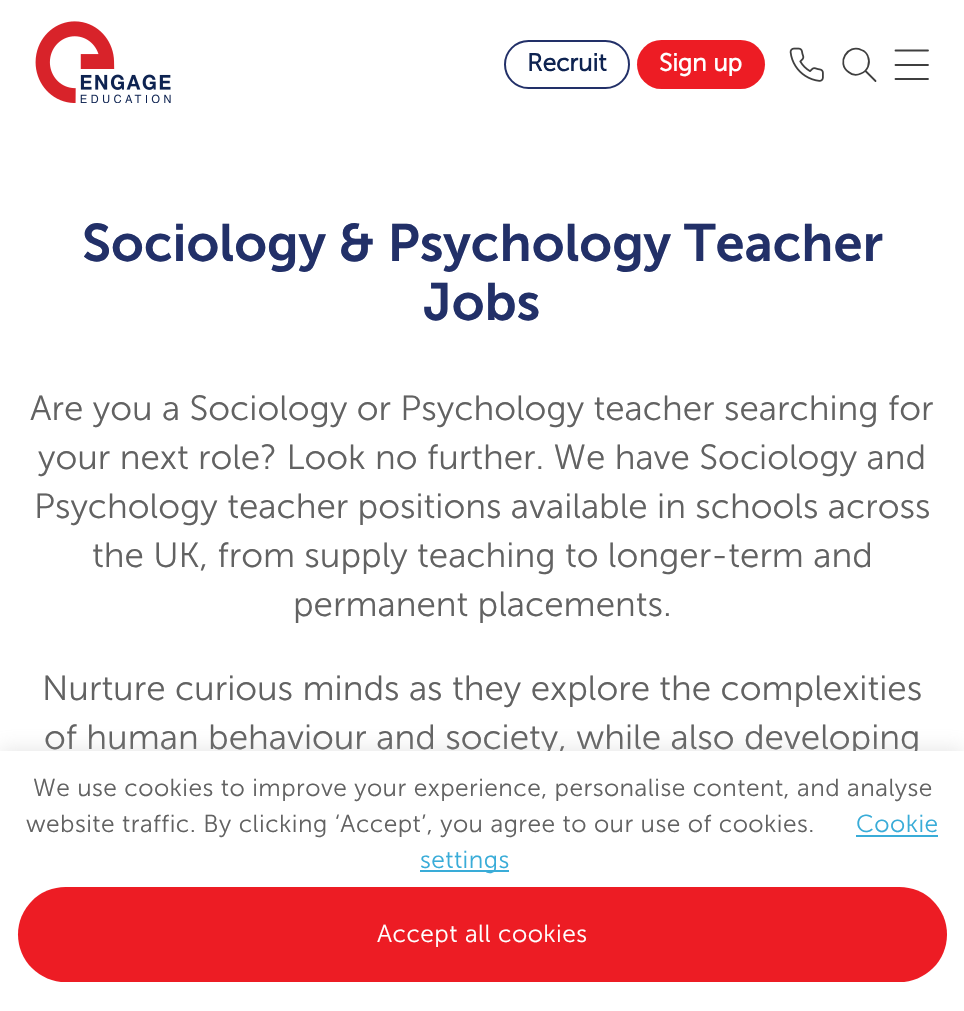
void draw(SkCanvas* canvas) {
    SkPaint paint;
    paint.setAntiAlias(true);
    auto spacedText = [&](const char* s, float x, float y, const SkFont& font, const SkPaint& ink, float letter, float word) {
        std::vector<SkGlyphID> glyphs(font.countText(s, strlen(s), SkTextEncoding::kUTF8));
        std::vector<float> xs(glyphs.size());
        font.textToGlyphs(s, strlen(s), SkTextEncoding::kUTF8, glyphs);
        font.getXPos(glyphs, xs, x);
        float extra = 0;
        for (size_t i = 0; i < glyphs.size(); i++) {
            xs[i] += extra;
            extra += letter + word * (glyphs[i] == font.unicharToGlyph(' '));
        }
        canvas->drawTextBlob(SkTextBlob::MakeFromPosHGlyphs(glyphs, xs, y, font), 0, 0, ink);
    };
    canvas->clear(0xFFFFFFFF);
    canvas->drawImageRect(SkImages::DeferredFromEncodedData(SkData::MakeFromFileName("img1.png")), SkRect::MakeXYWH(35, 21, 136, 82), SkSamplingOptions());
    paint.setStyle(SkPaint::kStroke_Style);
    paint.setStrokeWidth(2);
    paint.setColor(0xFF223068);
    canvas->drawRoundRect(SkRect::MakeXYWH(505, 41, 124, 47), 23.5f, 23.5f, paint);
    SkFont font1(fontMgr->matchFamilyStyle("Museo Sans", SkFontStyle::Bold()), 24.5f);
    font1.setSubpixel(true);
    paint.setStyle(SkPaint::kFill_Style);
    paint.setColor(0xFF0E2351);
    canvas->drawString("Recruit", 527, 71, font1, paint);
    paint.setColor(0xFFED1C24);
    canvas->drawRoundRect(SkRect::MakeXYWH(637, 40, 128, 49), 24.5f, 24.5f, paint);
    paint.setColor(0xFFFFFFFF);
    canvas->drawString("Sign up", 659, 71, font1, paint);
    canvas->drawImageRect(SkImages::DeferredFromEncodedData(SkData::MakeFromFileName("img2.png")), SkRect::MakeXYWH(789, 47, 35, 35), SkSamplingOptions());
    paint.setStyle(SkPaint::kStroke_Style);
    paint.setStrokeWidth(1.8f);
    paint.setStrokeCap(SkPaint::kRound_Cap);
    paint.setStrokeJoin(SkPaint::kRound_Join);
    paint.setColor(0xFF3F3F3F);
    canvas->drawPath(SkPathBuilder().moveTo(861, 73.5f).cubicTo(868, 71, 870.5f, 63, 868, 56.5f).cubicTo(867, 53.5f, 864.5f, 51, 861.5f, 50).cubicTo(847.5f, 43.5f, 836, 63, 848.5f, 72).cubicTo(852, 75, 857, 75.5f, 861, 73.5f).close().moveTo(865.5f, 71).lineTo(875.5f, 81).detach(), paint);
    paint.setStrokeJoin(SkPaint::kMiter_Join);
    canvas->drawPath(SkPathBuilder().moveTo(895.5f, 65).lineTo(928, 65).moveTo(895.5f, 79).lineTo(928, 79).moveTo(895.5f, 50.5f).lineTo(928, 50.5f).detach(), paint);
    SkFont font2(fontMgr->matchFamilyStyle("Museo Sans", SkFontStyle(600, SkFontStyle::kNormal_Width, SkFontStyle::kUpright_Slant)), 52.5f);
    font2.setSubpixel(true);
    paint.setStyle(SkPaint::kFill_Style);
    paint.setColor(0xFF223068);
    canvas->drawString("Sociology & Psychology Teacher", 82, 261, font2, paint);
    canvas->drawString("Jobs", 423, 320, font2, paint);
    SkFont font3(fontMgr->matchFamilyStyle("Museo Sans", SkFontStyle(300, SkFontStyle::kNormal_Width, SkFontStyle::kUpright_Slant)), 35);
    font3.setSubpixel(true);
    paint.setColor(0xFF626262);
    canvas->drawString("Are you a Sociology or Psychology teacher searching for", 30, 420, font3, paint);
    canvas->drawString("your next role? Look no further. We have Sociology and", 38, 469, font3, paint);
    canvas->drawString("Psychology teacher positions available in schools across", 34, 518, font3, paint);
    canvas->drawString("the UK, from supply teaching to longer-term and", 92, 567, font3, paint);
    canvas->drawString("permanent placements.", 293, 616, font3, paint);
    canvas->drawString("Nurture curious minds as they explore the complexities", 42, 700, font3, paint);
    canvas->drawString("of human behaviour and society, while also developing", 44, 749, font3, paint);
    paint.setColor(0x4DACABAB);
    paint.setMaskFilter(SkMaskFilter::MakeBlur(kNormal_SkBlurStyle, 9));
    canvas->drawRect(SkRect::MakeXYWH(0, 749, 964, 261), paint);
    paint.setMaskFilter(nullptr);
    paint.setColor(0xFFFFFFFF);
    canvas->drawRect(SkRect::MakeXYWH(0, 751, 964, 260), paint);
    SkFont font4(fontMgr->matchFamilyStyle("Museo Sans", SkFontStyle(300, SkFontStyle::kNormal_Width, SkFontStyle::kUpright_Slant)), 24.5f);
    font4.setSubpixel(true);
    paint.setColor(0xFF626262);
    spacedText("We use cookies to improve your experience, personalise content, and analyse", 33, 796, font4, paint, 0.45f, 0);
    spacedText("website traffic. By clicking ‘Accept’, you agree to our use of cookies.", 26, 832, font4, paint, 0.45f, 0);
    paint.setColor(0xFF39ACD8);
    spacedText("Cookie", 856, 832, font4, paint, 0.45f, 0);
    canvas->drawRect(SkRect::MakeXYWH(856, 835, 82, 2), paint);
    canvas->drawRect(SkRect::MakeXYWH(420, 870, 89, 2), paint);
    spacedText("settings", 420, 868, font4, paint, 0.45f, 0);
    paint.setColor(0xFFED1C24);
    canvas->drawRoundRect(SkRect::MakeXYWH(18, 887, 929, 95), 47.5f, 47.5f, paint);
    paint.setColor(0xFFFFFFFF);
    spacedText("Accept all cookies", 377, 942, font4, paint, 0.45f, 0);
}
